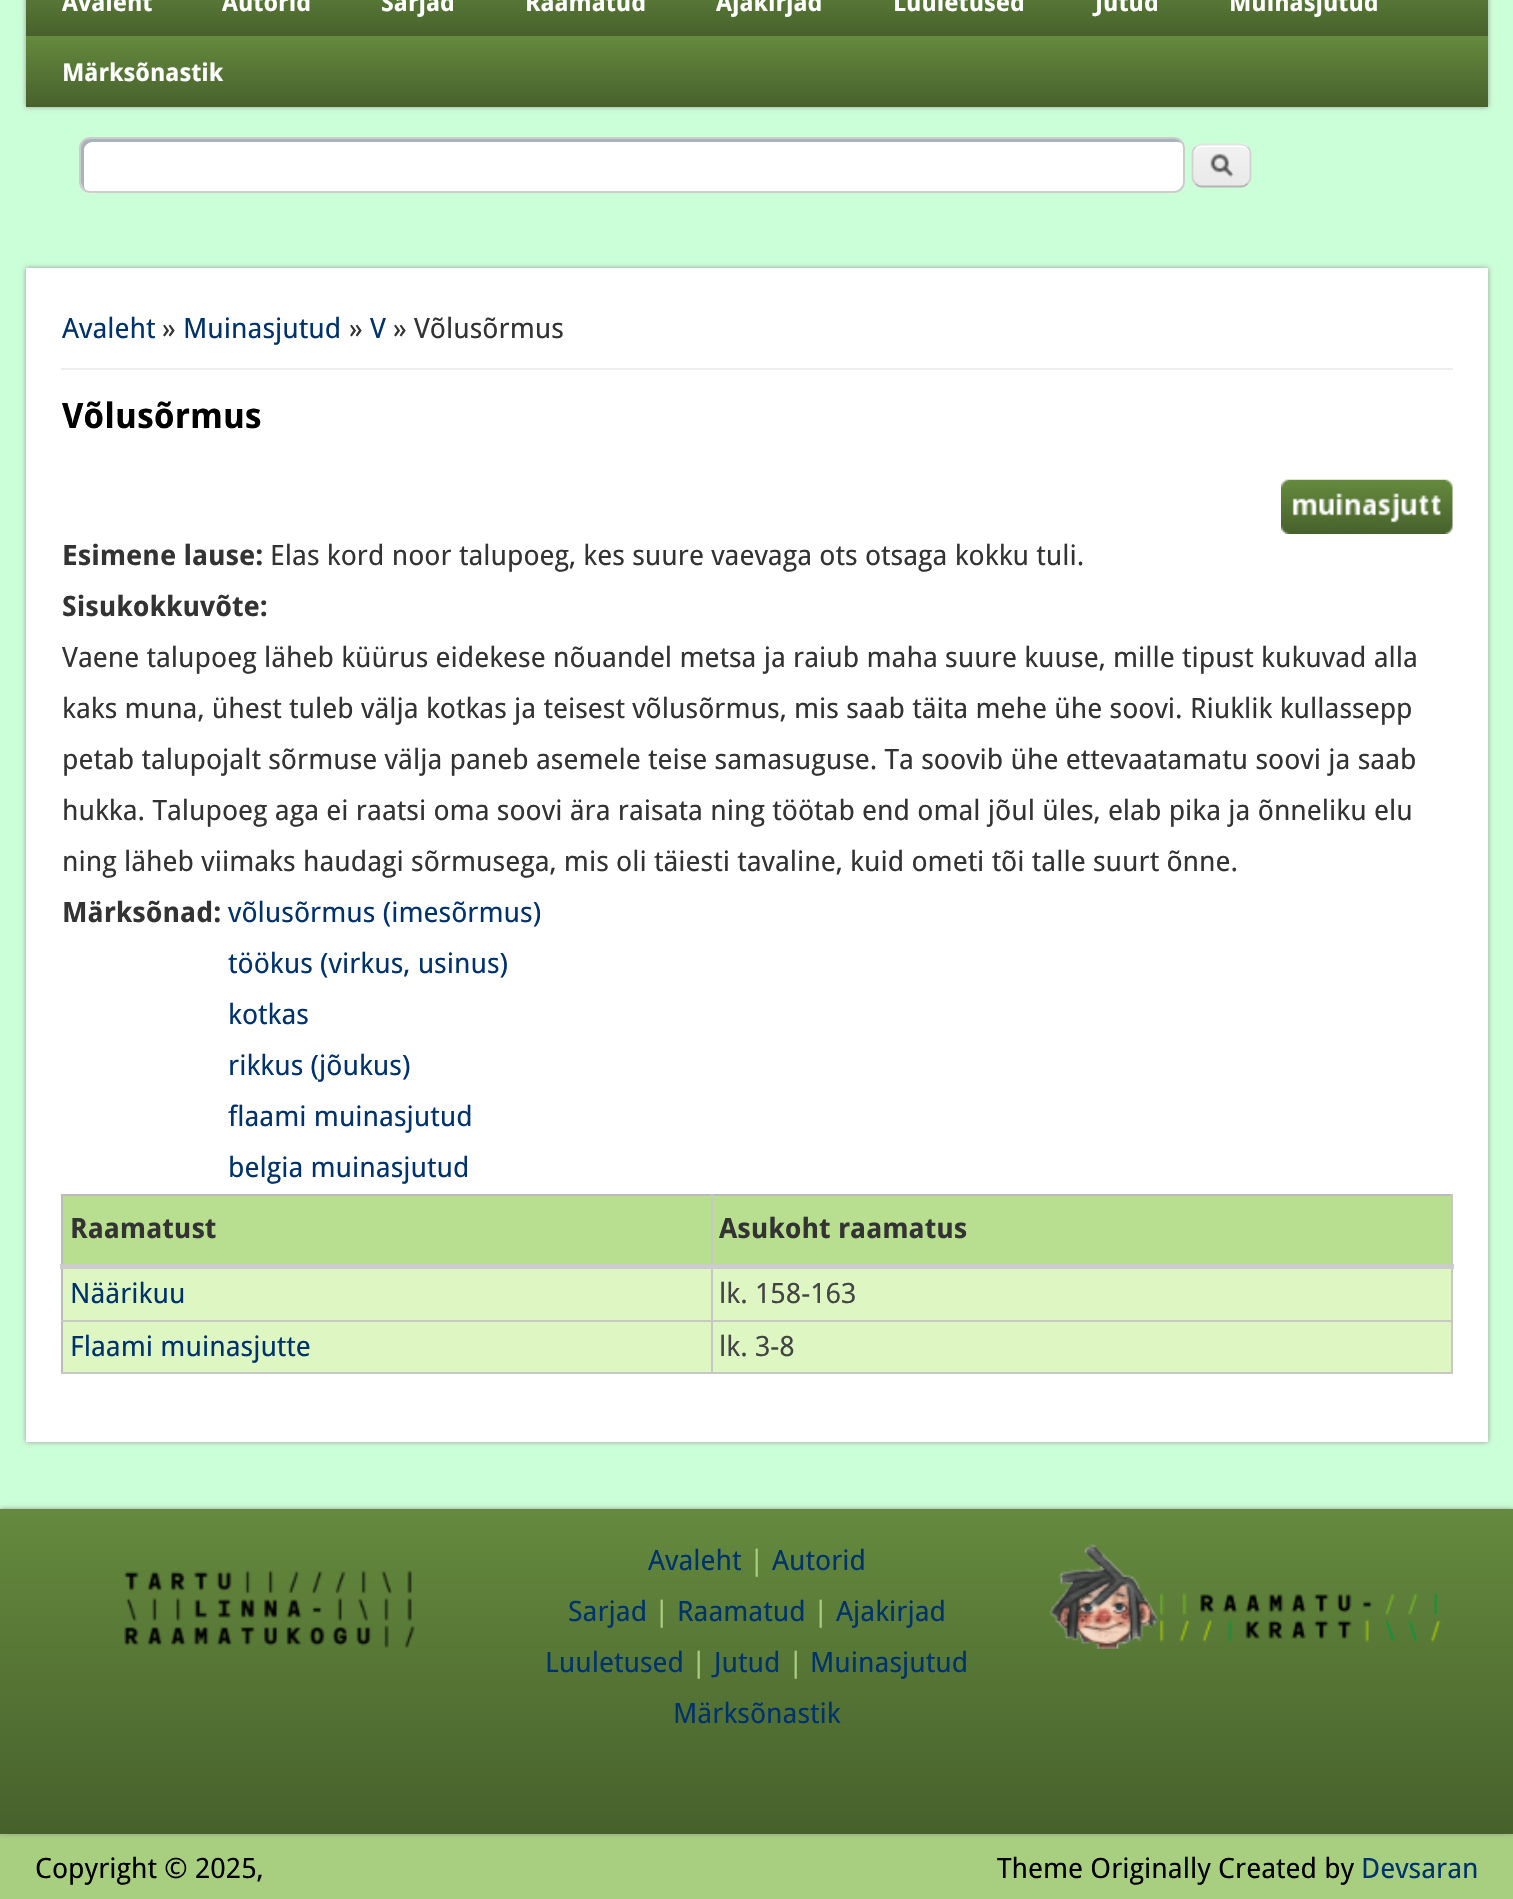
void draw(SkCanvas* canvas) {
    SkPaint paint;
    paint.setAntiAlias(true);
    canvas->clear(0xFFCBFFD8);
    paint.setColor(0xFF999999);
    paint.setMaskFilter(SkMaskFilter::MakeBlur(kNormal_SkBlurStyle, 2.5f));
    canvas->drawRect(SkRect::MakeXYWH(26, -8, 1462, 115), paint);
    paint.setMaskFilter(nullptr);
    {
        const SkColor colors[] = {0xFF658A3E, 0xFF47612C, 0xFF658A3E, 0xFF47612C, 0xFF658A3E, 0xFF47612C};
        const float stops[] = {0, 0.33f, 0.33f, 0.67f, 0.67f, 1};
        const SkPoint ends[] = {{757, -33}, {757, 177}};
        paint.setShader(SkGradientShader::MakeLinear(ends, colors, stops, 6, SkTileMode::kClamp));
        paint.setAlpha(255);
    }
    canvas->drawRect(SkRect::MakeXYWH(26, 0, 1462, 107), paint);
    SkFont font1(fontMgr->matchFamilyStyle("Droid Sans", SkFontStyle::Bold()), 24.5f);
    font1.setSubpixel(true);
    paint.setShader(nullptr);
    paint.setColor(0xFFFFFFFF);
    canvas->drawString("Avaleht", 62, 11, font1, paint);
    canvas->drawString("Autorid", 222, 11, font1, paint);
    canvas->drawString("Sarjad", 381, 11, font1, paint);
    canvas->drawString("Raamatud", 525, 11, font1, paint);
    canvas->drawString("Ajakirjad", 716, 11, font1, paint);
    canvas->drawString("Luuletused", 893, 11, font1, paint);
    canvas->drawString("Jutud", 1095, 11, font1, paint);
    canvas->drawString("Muinasjutud", 1229, 11, font1, paint);
    canvas->drawString("Märksõnastik", 62, 81, font1, paint);
    canvas->drawRoundRect(SkRect::MakeXYWH(79, 137, 1106, 56), 11, 11, paint);
    paint.setColor(0xFFA9B4BA);
    canvas->drawPath(SkPathBuilder().moveTo(93, 142).lineTo(1178, 142).lineTo(1182, 143).cubicTo(1181, 140, 1178, 138, 1174, 138).lineTo(90, 138).cubicTo(85, 138, 81, 142, 81, 147).lineTo(81, 182).cubicTo(81, 185, 83, 188, 85, 189).lineTo(84, 186).lineTo(84, 150).cubicTo(84, 146, 88, 142, 93, 142).close().detach(), paint);
    paint.setStyle(SkPaint::kStroke_Style);
    paint.setStrokeWidth(2);
    paint.setColor(0xFFCCCCCC);
    canvas->drawRoundRect(SkRect::MakeXYWH(80, 138, 1104, 54), 10, 10, paint);
    canvas->drawImageRect(SkImages::DeferredFromEncodedData(SkData::MakeFromFileName("img1.png")), SkRect::MakeXYWH(1192, 145, 59, 43), SkSamplingOptions());
    paint.setStyle(SkPaint::kFill_Style);
    paint.setColor(0xFFFFFFFF);
    canvas->drawPath(SkPathBuilder().moveTo(1202, 147).lineTo(1241, 147).cubicTo(1246, 147, 1250, 151, 1250, 156).cubicTo(1250, 145, 1244, 145, 1235, 145).lineTo(1209, 145).cubicTo(1200, 145, 1194, 145, 1194, 156).cubicTo(1194, 151, 1197, 147, 1202, 147).close().detach(), paint);
    paint.setStyle(SkPaint::kStroke_Style);
    paint.setStrokeWidth(1.8f);
    paint.setColor(0xFFE4E4E4);
    canvas->drawPath(SkPathBuilder().moveTo(1195.5f, 147).cubicTo(1197, 145.5f, 1199.5f, 144.5f, 1202, 144.5f).lineTo(1241, 144.5f).cubicTo(1243.5f, 144.5f, 1246, 145.5f, 1247.5f, 147).detach(), paint);
    paint.setColor(0xFFD2D2D2);
    canvas->drawPath(SkPathBuilder().moveTo(1247.5f, 147).cubicTo(1249.5f, 149, 1250.5f, 151.5f, 1250.5f, 154).lineTo(1250.5f, 177).cubicTo(1250.5f, 179.5f, 1249.5f, 182, 1247.5f, 183.5f).detach(), paint);
    paint.setColor(0xFFB4B4B4);
    canvas->drawPath(SkPathBuilder().moveTo(1247.5f, 183.5f).cubicTo(1246, 185.5f, 1243.5f, 186.5f, 1241, 186.5f).lineTo(1202, 186.5f).cubicTo(1199.5f, 186.5f, 1197, 185.5f, 1195.5f, 183.5f).detach(), paint);
    paint.setColor(0xFFD2D2D2);
    canvas->drawPath(SkPathBuilder().moveTo(1195.5f, 183.5f).cubicTo(1193.5f, 182, 1192.5f, 179.5f, 1192.5f, 177).lineTo(1192.5f, 154).cubicTo(1192.5f, 151.5f, 1193.5f, 149, 1195.5f, 147).detach(), paint);
    paint.setStyle(SkPaint::kFill_Style);
    paint.setColor(0xFF999999);
    paint.setMaskFilter(SkMaskFilter::MakeBlur(kNormal_SkBlurStyle, 2.5f));
    canvas->drawRect(SkRect::MakeXYWH(26, 268, 1462, 1174), paint);
    paint.setMaskFilter(nullptr);
    paint.setColor(0xFFFFFFFF);
    canvas->drawRect(SkRect::MakeXYWH(26, 268, 1462, 1174), paint);
    paint.setColor(0xFFEEEEEE);
    canvas->drawRect(SkRect::MakeXYWH(61, 368, 1392, 2), paint);
    SkFont font2(fontMgr->matchFamilyStyle("Droid Sans", SkFontStyle::Normal()), 28);
    font2.setSubpixel(true);
    paint.setColor(0xFF00326D);
    canvas->drawString("Avaleht", 62, 338, font2, paint);
    paint.setColor(0xFF333333);
    canvas->drawString("»", 162, 338, font2, paint);
    paint.setColor(0xFF00326D);
    canvas->drawString("Muinasjutud", 183, 338, font2, paint);
    paint.setColor(0xFF333333);
    canvas->drawString("»", 349, 338, font2, paint);
    paint.setColor(0xFF00326D);
    canvas->drawString("V", 370, 338, font2, paint);
    paint.setColor(0xFF333333);
    canvas->drawString("» Võlusõrmus", 393, 338, font2, paint);
    SkFont font3(fontMgr->matchFamilyStyle("Droid Sans", SkFontStyle::Bold()), 35);
    font3.setSubpixel(true);
    paint.setColor(0xFF000000);
    canvas->drawString("Võlusõrmus", 62, 428, font3, paint);
    canvas->drawImageRect(SkImages::DeferredFromEncodedData(SkData::MakeFromFileName("img2.png")), SkRect::MakeXYWH(1281, 479, 172, 55), SkSamplingOptions());
    SkFont font4(fontMgr->matchFamilyStyle("Droid Sans", SkFontStyle::Bold()), 28);
    font4.setSubpixel(true);
    paint.setColor(0xFF333333);
    canvas->drawString("Esimene lause:", 62, 565, font4, paint);
    canvas->drawString("Elas kord noor talupoeg, kes suure vaevaga ots otsaga kokku tuli.", 270, 565, font2, paint);
    canvas->drawString("Sisukokkuvõte:", 62, 616, font4, paint);
    canvas->drawString("Vaene talupoeg läheb küürus eidekese nõuandel metsa ja raiub maha suure kuuse, mille tipust kukuvad alla", 62, 667, font2, paint);
    canvas->drawString("kaks muna, ühest tuleb välja kotkas ja teisest võlusõrmus, mis saab täita mehe ühe soovi. Riuklik kullassepp", 62, 718, font2, paint);
    canvas->drawString("petab talupojalt sõrmuse välja paneb asemele teise samasuguse. Ta soovib ühe ettevaatamatu soovi ja saab", 62, 769, font2, paint);
    canvas->drawString("hukka. Talupoeg aga ei raatsi oma soovi ära raisata ning töötab end omal jõul üles, elab pika ja õnneliku elu", 62, 820, font2, paint);
    canvas->drawString("ning läheb viimaks haudagi sõrmusega, mis oli täiesti tavaline, kuid ometi tõi talle suurt õnne.", 62, 871, font2, paint);
    canvas->drawString("Märksõnad:", 62, 922, font4, paint);
    paint.setColor(0xFF00326D);
    canvas->drawString("võlusõrmus (imesõrmus)", 228, 922, font2, paint);
    canvas->drawString("töökus (virkus, usinus)", 228, 973, font2, paint);
    canvas->drawString("kotkas", 228, 1024, font2, paint);
    canvas->drawString("rikkus (jõukus)", 228, 1075, font2, paint);
    canvas->drawString("flaami muinasjutud", 228, 1126, font2, paint);
    canvas->drawString("belgia muinasjutud", 228, 1177, font2, paint);
    paint.setColor(0xFFBBBBBB);
    canvas->drawRect(SkRect::MakeXYWH(61, 1194, 1392, 2), paint);
    canvas->drawRect(SkRect::MakeXYWH(61, 1194, 2, 180), paint);
    paint.setColor(0xFFB8DF8F);
    canvas->drawRect(SkRect::MakeXYWH(63, 1196, 648, 68), paint);
    paint.setColor(0xFF333333);
    canvas->drawString("Raamatust", 70, 1238, font4, paint);
    paint.setColor(0xFFB8DF8F);
    canvas->drawRect(SkRect::MakeXYWH(713, 1196, 738, 68), paint);
    paint.setColor(0xFFC8C7C7);
    canvas->drawRect(SkRect::MakeXYWH(1451, 1194, 2, 180), paint);
    canvas->drawRect(SkRect::MakeXYWH(711, 1372, 742, 2), paint);
    canvas->drawRect(SkRect::MakeXYWH(711, 1320, 2, 54), paint);
    canvas->drawRect(SkRect::MakeXYWH(711, 1320, 742, 2), paint);
    canvas->drawRect(SkRect::MakeXYWH(711, 1194, 2, 127), paint);
    paint.setColor(0xFFCCCCCC);
    canvas->drawRect(SkRect::MakeXYWH(60, 1264, 1394, 5), paint);
    paint.setColor(0xFF333333);
    canvas->drawString("Asukoht raamatus", 719, 1238, font4, paint);
    paint.setColor(0xFFDDF6C2);
    canvas->drawRect(SkRect::MakeXYWH(63, 1269, 648, 51), paint);
    paint.setColor(0xFFC8C7C7);
    canvas->drawRect(SkRect::MakeXYWH(61, 1320, 651, 2), paint);
    paint.setColor(0xFF00326D);
    canvas->drawString("Näärikuu", 70, 1303, font2, paint);
    paint.setColor(0xFFDDF6C2);
    canvas->drawRect(SkRect::MakeXYWH(713, 1269, 738, 51), paint);
    paint.setColor(0xFF444444);
    canvas->drawString("lk. 158-163", 719, 1303, font2, paint);
    paint.setColor(0xFFDDF6C2);
    canvas->drawRect(SkRect::MakeXYWH(63, 1322, 648, 50), paint);
    paint.setColor(0xFFC8C7C7);
    canvas->drawRect(SkRect::MakeXYWH(61, 1372, 651, 2), paint);
    paint.setColor(0xFF00326D);
    canvas->drawString("Flaami muinasjutte", 70, 1356, font2, paint);
    paint.setColor(0xFFDDF6C2);
    canvas->drawRect(SkRect::MakeXYWH(713, 1322, 738, 50), paint);
    paint.setColor(0xFF444444);
    canvas->drawString("lk. 3-8", 719, 1356, font2, paint);
    paint.setColor(0xFFA8CF7F);
    canvas->drawRect(SkRect::MakeXYWH(0, 1834, 1513, 65), paint);
    paint.setColor(0xFF999999);
    paint.setMaskFilter(SkMaskFilter::MakeBlur(kNormal_SkBlurStyle, 2.5f));
    canvas->drawRect(SkRect::MakeXYWH(0, 1509, 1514, 325), paint);
    paint.setMaskFilter(nullptr);
    {
        const SkColor colors[] = {0xFF658A3E, 0xFF47612C};
        const float stops[] = {0, 1};
        const SkPoint ends[] = {{757, 1509}, {757, 1834}};
        paint.setShader(SkGradientShader::MakeLinear(ends, colors, stops, 2, SkTileMode::kClamp));
        paint.setAlpha(255);
    }
    canvas->drawRect(SkRect::MakeXYWH(0, 1509, 1513, 325), paint);
    canvas->drawImageRect(SkImages::DeferredFromEncodedData(SkData::MakeFromFileName("img3.png")), SkRect::MakeXYWH(124, 1570, 291, 79), SkSamplingOptions());
    paint.setShader(nullptr);
    paint.setColor(0xFF00326D);
    canvas->drawString("Avaleht", 648, 1570, font2, paint);
    paint.setColor(0xFFA8CF7F);
    canvas->drawString("|", 749, 1570, font2, paint);
    paint.setColor(0xFF00326D);
    canvas->drawString("Autorid", 772, 1570, font2, paint);
    canvas->drawString("Sarjad", 568, 1621, font2, paint);
    paint.setColor(0xFFA8CF7F);
    canvas->drawString("|", 654, 1621, font2, paint);
    paint.setColor(0xFF00326D);
    canvas->drawString("Raamatud", 677, 1621, font2, paint);
    paint.setColor(0xFFA8CF7F);
    canvas->drawString("|", 813, 1621, font2, paint);
    paint.setColor(0xFF00326D);
    canvas->drawString("Ajakirjad", 836, 1621, font2, paint);
    canvas->drawString("Luuletused", 545, 1672, font2, paint);
    paint.setColor(0xFFA8CF7F);
    canvas->drawString("|", 691, 1672, font2, paint);
    paint.setColor(0xFF00326D);
    canvas->drawString("Jutud", 714, 1672, font2, paint);
    paint.setColor(0xFFA8CF7F);
    canvas->drawString("|", 788, 1672, font2, paint);
    paint.setColor(0xFF00326D);
    canvas->drawString("Muinasjutud", 810, 1672, font2, paint);
    canvas->drawString("Märksõnastik", 673, 1723, font2, paint);
    canvas->drawImageRect(SkImages::DeferredFromEncodedData(SkData::MakeFromFileName("img4.png")), SkRect::MakeXYWH(1049, 1544, 392, 105), SkSamplingOptions());
    paint.setColor(0xFF000000);
    canvas->drawString("Copyright © 2025,", 35, 1878, font2, paint);
    canvas->drawString("Theme Originally Created by", 997, 1878, font2, paint);
    paint.setColor(0xFF00326D);
    canvas->drawString("Devsaran", 1361, 1878, font2, paint);
}
